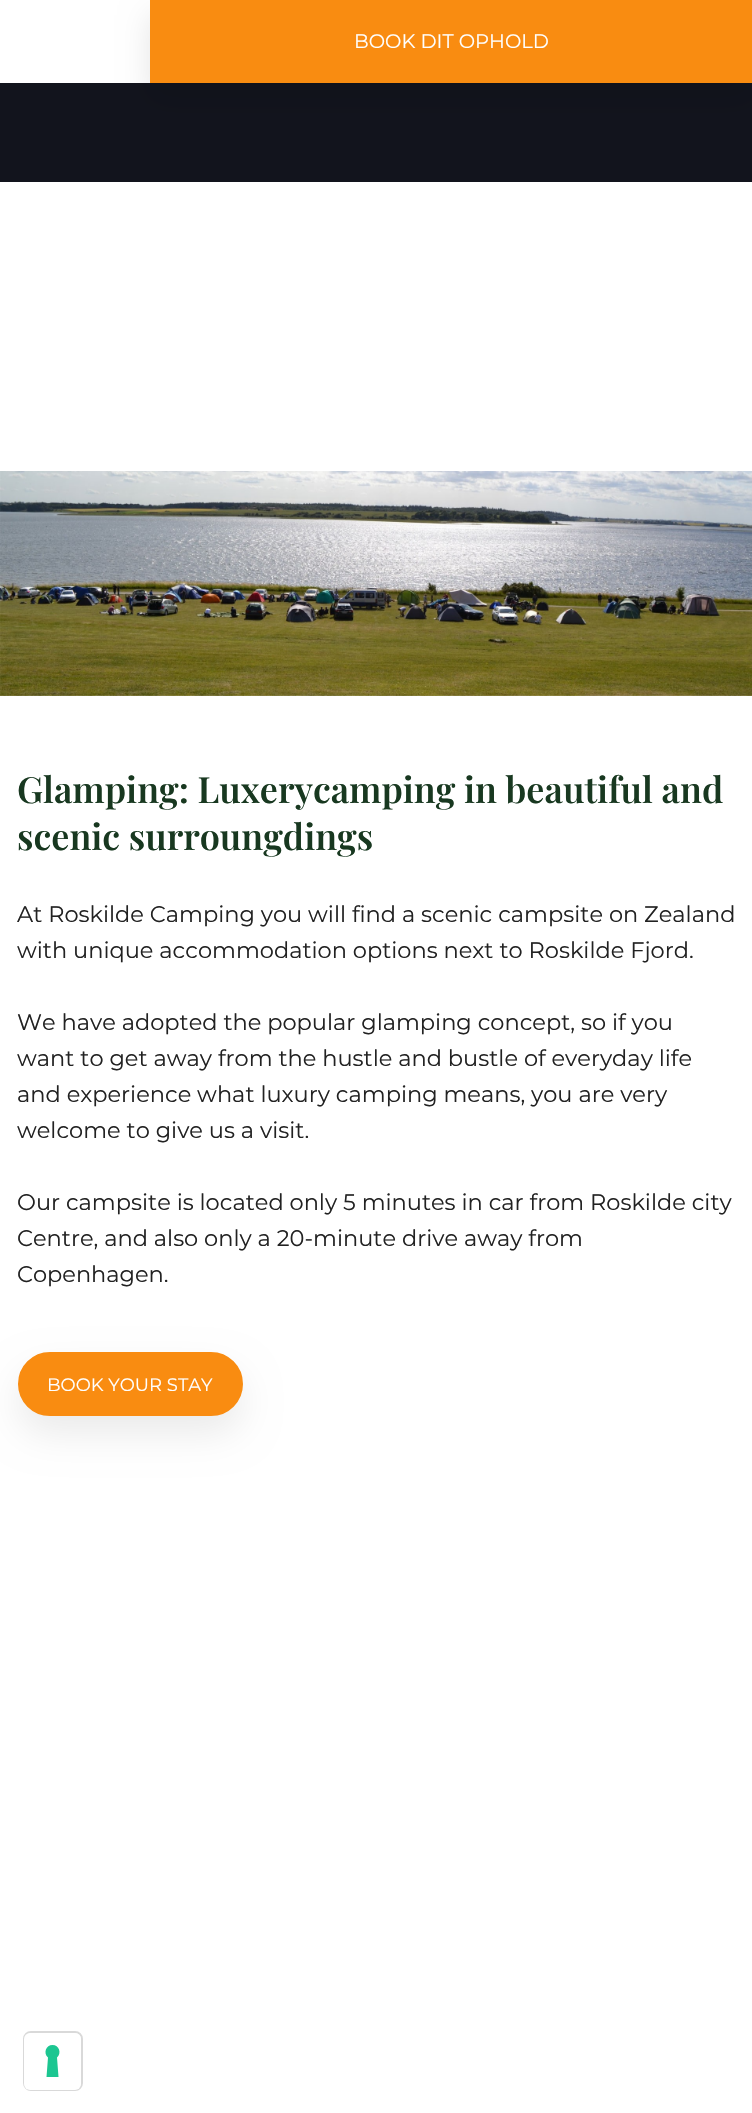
void draw(SkCanvas* canvas) {
    SkPaint paint;
    paint.setAntiAlias(true);
    canvas->clear(0xFFFFFFFF);
    paint.setColor(0xFF12141D);
    canvas->drawRect(SkRect::MakeXYWH(0, 83, 752, 99), paint);
    paint.setColor(0x1A000000);
    paint.setMaskFilter(SkMaskFilter::MakeBlur(kNormal_SkBlurStyle, 15));
    canvas->drawRect(SkRect::MakeXYWH(150, 15, 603, 83), paint);
    paint.setMaskFilter(nullptr);
    paint.setColor(0xFFF98C11);
    canvas->drawRect(SkRect::MakeXYWH(150, 0, 602, 83), paint);
    SkFont font1(fontMgr->matchFamilyStyle("Montserrat", SkFontStyle::Normal()), 19.5f);
    font1.setSubpixel(true);
    paint.setColor(0xFFFFFFFF);
    canvas->drawString("BOOK DIT OPHOLD", 354, 48, font1, paint);
    canvas->drawImageRect(SkImages::DeferredFromEncodedData(SkData::MakeFromFileName("img1.png")), SkRect::MakeXYWH(0, 471, 752, 225), SkSamplingOptions());
    SkFont font2(fontMgr->matchFamilyStyle("Playfair Display", SkFontStyle(600, SkFontStyle::kNormal_Width, SkFontStyle::kUpright_Slant)), 36);
    font2.setSubpixel(true);
    paint.setColor(0xFF183820);
    canvas->drawString("Glamping: Luxerycamping in beautiful and", 17, 803, font2, paint);
    canvas->drawString("scenic surroungdings", 17, 850, font2, paint);
    SkFont font3(fontMgr->matchFamilyStyle("Montserrat", SkFontStyle::Normal()), 22.5f);
    font3.setSubpixel(true);
    paint.setColor(0xFF222222);
    canvas->drawString("At Roskilde Camping you will find a scenic campsite on Zealand", 17, 922, font3, paint);
    canvas->drawString("with unique accommodation options next to Roskilde Fjord.", 17, 958, font3, paint);
    canvas->drawString("We have adopted the popular glamping concept, so if you", 17, 1030, font3, paint);
    canvas->drawString("want to get away from the hustle and bustle of everyday life", 17, 1066, font3, paint);
    canvas->drawString("and experience what luxury camping means, you are very", 17, 1102, font3, paint);
    canvas->drawString("welcome to give us a visit.", 17, 1138, font3, paint);
    canvas->drawString("Our campsite is located only 5 minutes in car from Roskilde city", 17, 1210, font3, paint);
    canvas->drawString("Centre, and also only a 20-minute drive away from", 17, 1246, font3, paint);
    canvas->drawString("Copenhagen.", 17, 1282, font3, paint);
    paint.setColor(0x14000000);
    paint.setMaskFilter(SkMaskFilter::MakeBlur(kNormal_SkBlurStyle, 18));
    canvas->drawRoundRect(SkRect::MakeXYWH(18, 1370, 225, 64), 32, 32, paint);
    paint.setMaskFilter(nullptr);
    paint.setColor(0xFFF98C11);
    canvas->drawRoundRect(SkRect::MakeXYWH(19.5f, 1353.5f, 222, 61), 30.5f, 30.5f, paint);
    paint.setStyle(SkPaint::kStroke_Style);
    paint.setStrokeWidth(3);
    canvas->drawRoundRect(SkRect::MakeXYWH(19.5f, 1353.5f, 222, 61), 30.5f, 30.5f, paint);
    SkFont font4(fontMgr->matchFamilyStyle("Montserrat", SkFontStyle::Normal()), 18);
    font4.setSubpixel(true);
    paint.setStyle(SkPaint::kFill_Style);
    paint.setColor(0xFFFFFFFF);
    canvas->drawString("BOOK YOUR STAY", 47, 1391, font4, paint);
    paint.setStyle(SkPaint::kStroke_Style);
    paint.setStrokeWidth(2);
    paint.setColor(0xFFD9D9D9);
    canvas->drawRoundRect(SkRect::MakeXYWH(24, 2032, 58, 58), 7, 7, paint);
    paint.setStyle(SkPaint::kFill_Style);
    paint.setColor(0xFFFFFFFF);
    canvas->drawRoundRect(SkRect::MakeXYWH(24, 2033, 57, 57), 6, 6, paint);
    paint.setColor(0xFF1CC691);
    canvas->drawPath(SkPathBuilder(SkPathFillType::kEvenOdd).moveTo(52.5f, 2045).cubicTo(59, 2045, 62, 2053, 57, 2057.5f).lineTo(58.5f, 2077).lineTo(46.5f, 2077).lineTo(48, 2057.5f).cubicTo(43, 2053, 46, 2045, 52.5f, 2045).close().detach(), paint);
}
